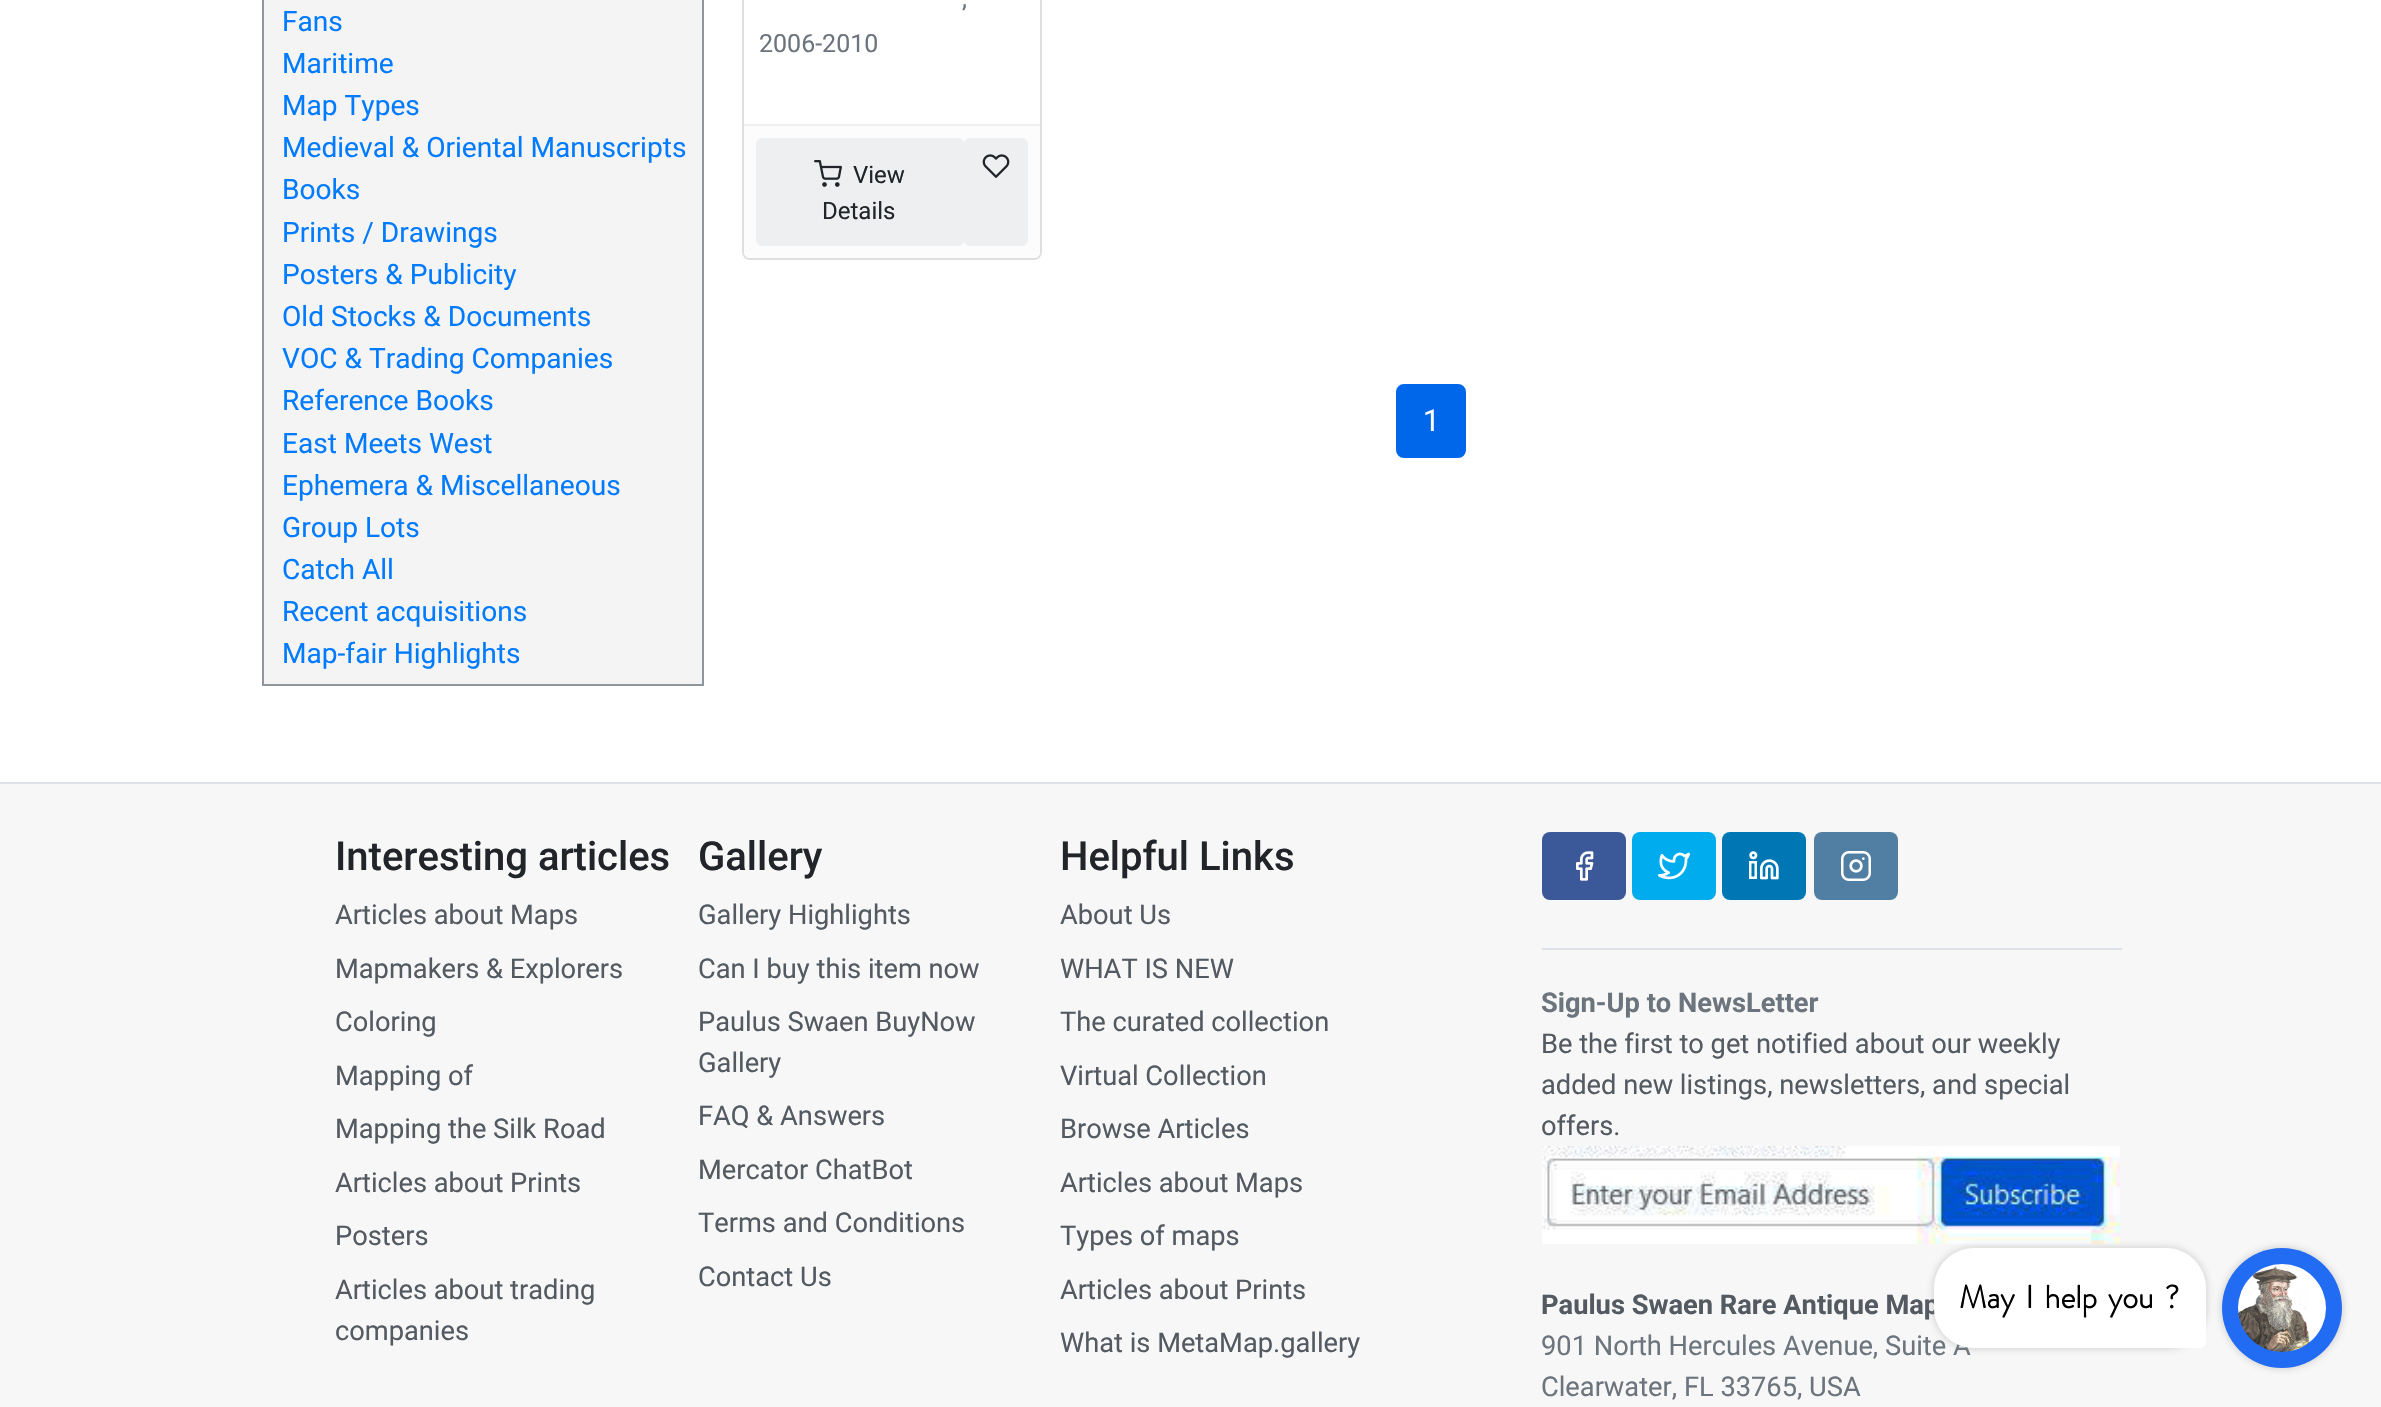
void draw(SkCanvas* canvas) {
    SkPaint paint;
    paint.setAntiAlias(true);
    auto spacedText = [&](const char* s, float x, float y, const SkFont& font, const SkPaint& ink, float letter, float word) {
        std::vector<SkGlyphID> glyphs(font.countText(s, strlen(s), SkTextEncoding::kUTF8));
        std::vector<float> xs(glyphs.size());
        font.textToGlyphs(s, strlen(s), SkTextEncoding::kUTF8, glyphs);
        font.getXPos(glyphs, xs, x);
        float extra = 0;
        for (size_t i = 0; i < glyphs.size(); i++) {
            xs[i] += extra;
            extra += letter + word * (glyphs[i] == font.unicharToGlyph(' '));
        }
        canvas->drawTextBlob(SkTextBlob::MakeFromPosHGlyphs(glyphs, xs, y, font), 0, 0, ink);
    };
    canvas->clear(0xFFFFFFFF);
    paint.setColor(0xFFF4F4F4);
    canvas->drawRect(SkRect::MakeXYWH(263, -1, 440, 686), paint);
    paint.setStyle(SkPaint::kStroke_Style);
    paint.setStrokeWidth(2);
    paint.setColor(0xFF8E959B);
    canvas->drawRect(SkRect::MakeXYWH(263, -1, 440, 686), paint);
    SkFont font1(fontMgr->matchFamilyStyle("Roboto", SkFontStyle::Normal()), 28.1f);
    font1.setSubpixel(true);
    paint.setStyle(SkPaint::kFill_Style);
    paint.setColor(0xFF007BFF);
    canvas->drawString("Fans", 282, 31, font1, paint);
    canvas->drawString("Maritime", 282, 73, font1, paint);
    canvas->drawString("Map Types", 282, 115, font1, paint);
    canvas->drawString("Medieval & Oriental Manuscripts", 282, 157, font1, paint);
    canvas->drawString("Books", 282, 199, font1, paint);
    canvas->drawString("Prints / Drawings", 282, 242, font1, paint);
    canvas->drawString("Posters & Publicity", 282, 284, font1, paint);
    canvas->drawString("Old Stocks & Documents", 282, 326, font1, paint);
    canvas->drawString("VOC & Trading Companies", 282, 368, font1, paint);
    canvas->drawString("Reference Books", 282, 410, font1, paint);
    canvas->drawString("East Meets West", 282, 453, font1, paint);
    canvas->drawString("Ephemera & Miscellaneous", 282, 495, font1, paint);
    canvas->drawString("Group Lots", 282, 537, font1, paint);
    canvas->drawString("Catch All", 282, 579, font1, paint);
    canvas->drawString("Recent acquisitions", 282, 621, font1, paint);
    canvas->drawString("Map-fair Highlights", 282, 663, font1, paint);
    paint.setStyle(SkPaint::kStroke_Style);
    paint.setColor(0xFFDFDFDF);
    canvas->drawRoundRect(SkRect::MakeXYWH(743, -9, 298, 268), 7, 7, paint);
    SkFont font2(fontMgr->matchFamilyStyle("Roboto", SkFontStyle::Normal()), 25);
    font2.setSubpixel(true);
    paint.setStyle(SkPaint::kFill_Style);
    paint.setColor(0xFF6C757D);
    canvas->drawString(",", 962, 7, font2, paint);
    canvas->drawString("2006-2010", 759, 52, font2, paint);
    paint.setColor(0xFFFCFCFC);
    canvas->drawPath(SkPathBuilder().moveTo(744, 124).lineTo(1040, 124).lineTo(1040, 252).cubicTo(1040, 255.5f, 1037.5f, 258, 1034, 258).lineTo(750, 258).cubicTo(746.5f, 258, 744, 255.5f, 744, 252).close().detach(), paint);
    paint.setColor(0xFFEEEFF0);
    canvas->drawRect(SkRect::MakeXYWH(744, 124, 296, 2), paint);
    canvas->drawRoundRect(SkRect::MakeXYWH(757, 139, 206, 106), 5, 5, paint);
    paint.setStyle(SkPaint::kStroke_Style);
    canvas->drawRoundRect(SkRect::MakeXYWH(757, 139, 206, 106), 5, 5, paint);
    canvas->drawImageRect(SkImages::DeferredFromEncodedData(SkData::MakeFromFileName("img1.png")), SkRect::MakeXYWH(814, 160, 28, 27), SkSamplingOptions());
    SkFont font3(fontMgr->matchFamilyStyle("Roboto", SkFontStyle::Normal()), 24);
    font3.setSubpixel(true);
    paint.setStyle(SkPaint::kFill_Style);
    paint.setColor(0xFF212529);
    canvas->drawString("View", 853, 183, font3, paint);
    canvas->drawString("Details", 822, 219, font3, paint);
    paint.setColor(0xFFEEEFF0);
    canvas->drawRoundRect(SkRect::MakeXYWH(965, 139, 62, 106), 5, 5, paint);
    paint.setStyle(SkPaint::kStroke_Style);
    canvas->drawRoundRect(SkRect::MakeXYWH(965, 139, 62, 106), 5, 5, paint);
    canvas->drawImageRect(SkImages::DeferredFromEncodedData(SkData::MakeFromFileName("img2.png")), SkRect::MakeXYWH(982, 154, 28, 24), SkSamplingOptions());
    paint.setStyle(SkPaint::kFill_Style);
    paint.setColor(0xFF0067EB);
    canvas->drawRoundRect(SkRect::MakeXYWH(1397, 385, 68, 72), 7, 7, paint);
    paint.setStyle(SkPaint::kStroke_Style);
    canvas->drawRoundRect(SkRect::MakeXYWH(1397, 385, 68, 72), 7, 7, paint);
    SkFont font4(fontMgr->matchFamilyStyle("Roboto", SkFontStyle::Normal()), 30);
    font4.setSubpixel(true);
    paint.setStyle(SkPaint::kFill_Style);
    paint.setColor(0xFFFFFFFF);
    canvas->drawString("1", 1423, 431, font4, paint);
    paint.setColor(0xFFF7F7F7);
    canvas->drawRect(SkRect::MakeXYWH(0, 784, 2381, 623), paint);
    paint.setColor(0xFFDEE2E6);
    canvas->drawRect(SkRect::MakeXYWH(0, 782, 2381, 2), paint);
    SkFont font5(fontMgr->matchFamilyStyle("Roboto", SkFontStyle(500, SkFontStyle::kNormal_Width, SkFontStyle::kUpright_Slant)), 40);
    font5.setSubpixel(true);
    paint.setColor(0xFF212529);
    canvas->drawString("Interesting articles", 335, 870, font5, paint);
    SkFont font6(fontMgr->matchFamilyStyle("Roboto", SkFontStyle::Normal()), 27.25f);
    font6.setSubpixel(true);
    paint.setColor(0xFF535A61);
    canvas->drawString("Articles about Maps", 335, 924, font6, paint);
    canvas->drawString("Mapmakers & Explorers", 335, 978, font6, paint);
    canvas->drawString("Coloring", 335, 1031, font6, paint);
    canvas->drawString("Mapping of", 335, 1085, font6, paint);
    canvas->drawString("Mapping the Silk Road", 335, 1138, font6, paint);
    canvas->drawString("Articles about Prints", 335, 1192, font6, paint);
    canvas->drawString("Posters", 335, 1245, font6, paint);
    canvas->drawString("Articles about trading", 335, 1299, font6, paint);
    canvas->drawString("companies", 335, 1340, font6, paint);
    paint.setColor(0xFF212529);
    canvas->drawString("Gallery", 698, 870, font5, paint);
    paint.setColor(0xFF535A61);
    canvas->drawString("Gallery Highlights", 698, 924, font6, paint);
    canvas->drawString("Can I buy this item now", 698, 978, font6, paint);
    canvas->drawString("Paulus Swaen BuyNow", 698, 1031, font6, paint);
    canvas->drawString("Gallery", 698, 1072, font6, paint);
    canvas->drawString("FAQ & Answers", 698, 1125, font6, paint);
    canvas->drawString("Mercator ChatBot", 698, 1179, font6, paint);
    canvas->drawString("Terms and Conditions", 698, 1232, font6, paint);
    canvas->drawString("Contact Us", 698, 1286, font6, paint);
    paint.setColor(0xFF212529);
    canvas->drawString("Helpful Links", 1060, 870, font5, paint);
    paint.setColor(0xFF535A61);
    canvas->drawString("About Us", 1060, 924, font6, paint);
    canvas->drawString("WHAT IS NEW", 1060, 978, font6, paint);
    canvas->drawString("The curated collection", 1060, 1031, font6, paint);
    canvas->drawString("Virtual Collection", 1060, 1085, font6, paint);
    canvas->drawString("Browse Articles", 1060, 1138, font6, paint);
    canvas->drawString("Articles about Maps", 1060, 1192, font6, paint);
    canvas->drawString("Types of maps", 1060, 1245, font6, paint);
    canvas->drawString("Articles about Prints", 1060, 1299, font6, paint);
    canvas->drawString("What is MetaMap.gallery", 1060, 1352, font6, paint);
    paint.setColor(0xFF3B5998);
    canvas->drawRoundRect(SkRect::MakeXYWH(1542, 832, 84, 68), 8, 8, paint);
    canvas->drawImageRect(SkImages::DeferredFromEncodedData(SkData::MakeFromFileName("img3.png")), SkRect::MakeXYWH(1576, 851, 18, 30), SkSamplingOptions());
    paint.setColor(0xFF00ACED);
    canvas->drawRoundRect(SkRect::MakeXYWH(1632, 832, 84, 68), 8, 8, paint);
    canvas->drawImageRect(SkImages::DeferredFromEncodedData(SkData::MakeFromFileName("img4.png")), SkRect::MakeXYWH(1658, 852, 32, 28), SkSamplingOptions());
    paint.setColor(0xFF0077B5);
    canvas->drawRoundRect(SkRect::MakeXYWH(1722, 832, 84, 68), 8, 8, paint);
    canvas->drawImageRect(SkImages::DeferredFromEncodedData(SkData::MakeFromFileName("img5.png")), SkRect::MakeXYWH(1749, 851, 30, 29), SkSamplingOptions());
    paint.setColor(0xFF517FA4);
    canvas->drawRoundRect(SkRect::MakeXYWH(1814, 832, 84, 68), 8, 8, paint);
    canvas->drawImageRect(SkImages::DeferredFromEncodedData(SkData::MakeFromFileName("img6.png")), SkRect::MakeXYWH(1841, 851, 30, 30), SkSamplingOptions());
    paint.setColor(0xFFDEE2E6);
    canvas->drawRect(SkRect::MakeXYWH(1542, 948, 580, 2), paint);
    SkFont font7(fontMgr->matchFamilyStyle("Roboto", SkFontStyle::Bold()), 27.25f);
    font7.setSubpixel(true);
    paint.setColor(0xFF6C757D);
    canvas->drawString("Sign-Up to NewsLetter", 1541, 1012, font7, paint);
    paint.setColor(0xFF535A61);
    canvas->drawString("Be the first to get notified about our weekly", 1541, 1053, font6, paint);
    canvas->drawString("added new listings, newsletters, and special", 1541, 1094, font6, paint);
    canvas->drawString("offers.", 1541, 1135, font6, paint);
    canvas->drawImageRect(SkImages::DeferredFromEncodedData(SkData::MakeFromFileName("img7.png")), SkRect::MakeXYWH(1542, 1146, 578, 98), SkSamplingOptions());
    canvas->drawString("Paulus Swaen Rare Antique Map", 1541, 1314, font7, paint);
    paint.setColor(0xFF6C757D);
    canvas->drawString("901 North Hercules Avenue, Suite A", 1541, 1355, font6, paint);
    canvas->drawString("Clearwater, FL 33765, USA", 1541, 1396, font6, paint);
    paint.setColor(0x4D929292);
    paint.setMaskFilter(SkMaskFilter::MakeBlur(kNormal_SkBlurStyle, 3));
    canvas->drawRoundRect(SkRect::MakeXYWH(1932, 1246, 276, 104), 42, 42, paint);
    paint.setMaskFilter(nullptr);
    paint.setColor(0xFFFFFFFF);
    canvas->drawPath(SkPathBuilder().moveTo(1974, 1248).lineTo(2166, 1248).cubicTo(2188, 1248, 2206, 1266, 2206, 1288).lineTo(2206, 1342).cubicTo(2206, 1345.5f, 2203.5f, 1348, 2200, 1348).lineTo(1974, 1348).cubicTo(1952, 1348, 1934, 1330, 1934, 1308).lineTo(1934, 1288).cubicTo(1934, 1266, 1952, 1248, 1974, 1248).close().detach(), paint);
    SkFont font8(fontMgr->matchFamilyStyle("Brandon Grotesque", SkFontStyle::Bold()), 32);
    font8.setSubpixel(true);
    paint.setColor(0xFF000000);
    spacedText("May I help you ?", 1959, 1308, font8, paint, 0, 4);
    paint.setColor(0x4D929292);
    paint.setMaskFilter(SkMaskFilter::MakeBlur(kNormal_SkBlurStyle, 3));
    canvas->drawRoundRect(SkRect::MakeXYWH(2220, 1246, 124, 124), 62, 62, paint);
    paint.setMaskFilter(nullptr);
    paint.setColor(0xFF226CF4);
    canvas->drawCircle(2282, 1308, 60, paint);
    canvas->drawImageRect(SkImages::DeferredFromEncodedData(SkData::MakeFromFileName("img8.png")), SkRect::MakeXYWH(2238, 1264, 88, 88), SkSamplingOptions());
}
